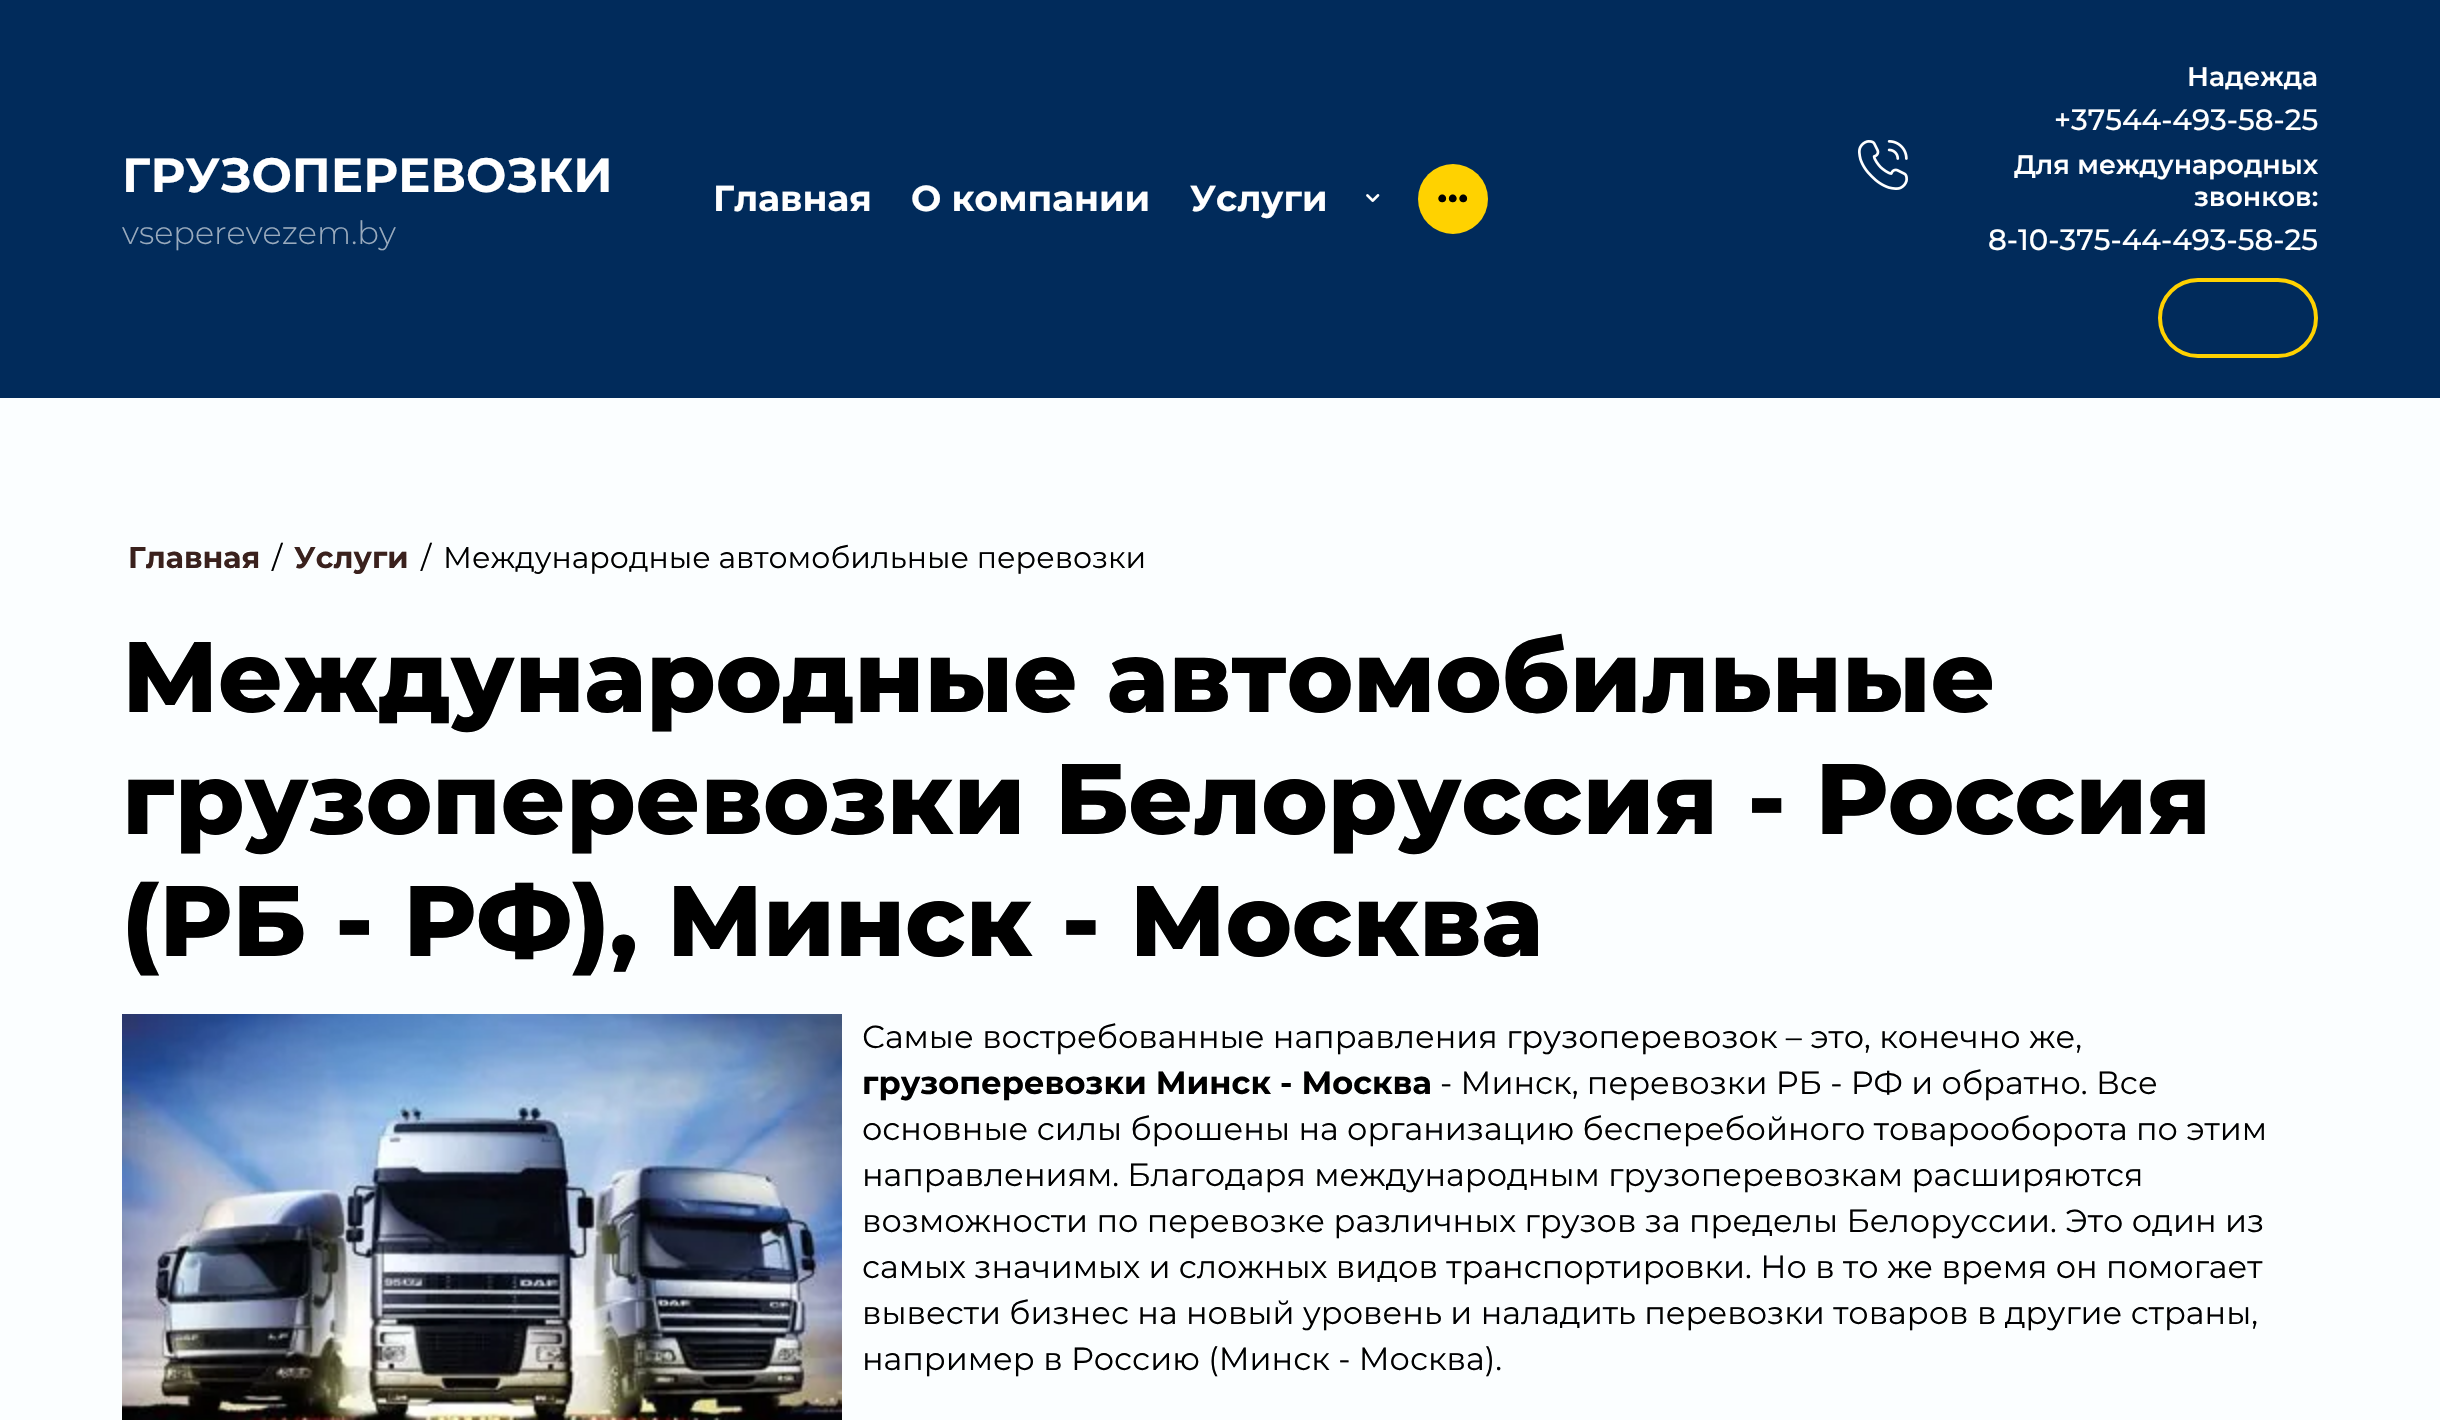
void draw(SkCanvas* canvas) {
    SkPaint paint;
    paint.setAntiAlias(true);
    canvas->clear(0xFFFBFEFF);
    paint.setColor(0xFF012B5B);
    canvas->drawRect(SkRect::MakeXYWH(0, 0, 2440, 398), paint);
    SkFont font1(fontMgr->matchFamilyStyle("Montserrat", SkFontStyle::Bold()), 48);
    font1.setSubpixel(true);
    paint.setColor(0xFFFFFFFF);
    canvas->drawString("ГРУЗОПЕРЕВОЗКИ", 122, 192, font1, paint);
    SkFont font2(fontMgr->matchFamilyStyle("Montserrat", SkFontStyle(300, SkFontStyle::kNormal_Width, SkFontStyle::kUpright_Slant)), 32);
    font2.setSubpixel(true);
    paint.setColor(0xFF99AABD);
    canvas->drawString("vseperevezem.by", 122, 244, font2, paint);
    SkFont font3(fontMgr->matchFamilyStyle("Montserrat", SkFontStyle::Bold()), 36);
    font3.setSubpixel(true);
    paint.setColor(0xFFFFFFFF);
    canvas->drawString("Главная", 713, 211, font3, paint);
    canvas->drawString("О компании", 911, 211, font3, paint);
    canvas->drawString("Услуги", 1190, 211, font3, paint);
    canvas->drawImageRect(SkImages::DeferredFromEncodedData(SkData::MakeFromFileName("img1.png")), SkRect::MakeXYWH(1366, 194, 14, 8), SkSamplingOptions());
    paint.setColor(0xFFFFD200);
    canvas->drawCircle(1453, 199, 35, paint);
    SkFont font4(fontMgr->matchFamilyStyle("Montserrat", SkFontStyle::Bold()), 40);
    font4.setSubpixel(true);
    paint.setColor(0xFF000000);
    canvas->drawString("...", 1437, 202, font4, paint);
    canvas->drawImageRect(SkImages::DeferredFromEncodedData(SkData::MakeFromFileName("img2.png")), SkRect::MakeXYWH(1858, 140, 50, 50), SkSamplingOptions());
    SkFont font5(fontMgr->matchFamilyStyle("Montserrat", SkFontStyle(600, SkFontStyle::kNormal_Width, SkFontStyle::kUpright_Slant)), 26.8f);
    font5.setSubpixel(true);
    paint.setColor(0xFFFFFFFF);
    canvas->drawString("Надежда", 2187, 86, font5, paint);
    SkFont font6(fontMgr->matchFamilyStyle("Montserrat", SkFontStyle(500, SkFontStyle::kNormal_Width, SkFontStyle::kUpright_Slant)), 29.25f);
    font6.setSubpixel(true);
    canvas->drawString("+37544-493-58-25", 2054, 130, font6, paint);
    canvas->drawString("Для международных", 2014, 174, font5, paint);
    canvas->drawString("звонков:", 2194, 206, font5, paint);
    canvas->drawString("8-10-375-44-493-58-25", 1988, 250, font6, paint);
    paint.setStyle(SkPaint::kStroke_Style);
    paint.setStrokeWidth(4);
    paint.setColor(0xFFFFD100);
    canvas->drawRoundRect(SkRect::MakeXYWH(2160, 280, 156, 76), 38, 38, paint);
    SkFont font7(fontMgr->matchFamilyStyle("Montserrat", SkFontStyle::Bold()), 30);
    font7.setSubpixel(true);
    paint.setStyle(SkPaint::kFill_Style);
    paint.setColor(0xFF3A211D);
    canvas->drawString("Главная", 128, 568, font7, paint);
    SkFont font8(fontMgr->matchFamilyStyle("Montserrat", SkFontStyle::Normal()), 30);
    font8.setSubpixel(true);
    paint.setColor(0xFF000000);
    canvas->drawString("/", 272, 568, font8, paint);
    paint.setColor(0xFF3A211D);
    canvas->drawString("Услуги", 294, 568, font7, paint);
    paint.setColor(0xFF000000);
    canvas->drawString("/", 421, 568, font8, paint);
    canvas->drawString("Международные автомобильные перевозки", 443, 568, font8, paint);
    SkFont font9(fontMgr->matchFamilyStyle("Montserrat", SkFontStyle(800, SkFontStyle::kNormal_Width, SkFontStyle::kUpright_Slant)), 100);
    font9.setSubpixel(true);
    canvas->drawString("Международные автомобильные", 122, 712, font9, paint);
    canvas->drawString("грузоперевозки Белоруссия - Россия", 122, 834, font9, paint);
    canvas->drawString("(РБ - РФ), Минск - Москва", 122, 956, font9, paint);
    canvas->drawImageRect(SkImages::DeferredFromEncodedData(SkData::MakeFromFileName("img3.png")), SkRect::MakeXYWH(122, 1014, 720, 406), SkSamplingOptions());
    SkFont font10(fontMgr->matchFamilyStyle("Montserrat", SkFontStyle::Normal()), 32);
    font10.setSubpixel(true);
    canvas->drawString("Самые востребованные направления грузоперевозок – это, конечно же,", 862, 1048, font10, paint);
    SkFont font11(fontMgr->matchFamilyStyle("Montserrat", SkFontStyle::Bold()), 32);
    font11.setSubpixel(true);
    canvas->drawString("грузоперевозки Минск - Москва", 862, 1094, font11, paint);
    canvas->drawString("- Минск, перевозки РБ - РФ и обратно. Все", 1440, 1094, font10, paint);
    canvas->drawString("основные силы брошены на организацию бесперебойного товарооборота по этим", 862, 1140, font10, paint);
    canvas->drawString("направлениям. Благодаря международным грузоперевозкам расширяются", 862, 1186, font10, paint);
    canvas->drawString("возможности по перевозке различных грузов за пределы Белоруссии. Это один из", 862, 1232, font10, paint);
    canvas->drawString("самых значимых и сложных видов транспортировки. Но в то же время он помогает", 862, 1278, font10, paint);
    canvas->drawString("вывести бизнес на новый уровень и наладить перевозки товаров в другие страны,", 862, 1324, font10, paint);
    canvas->drawString("например в Россию (Минск - Москва).", 862, 1370, font10, paint);
}
